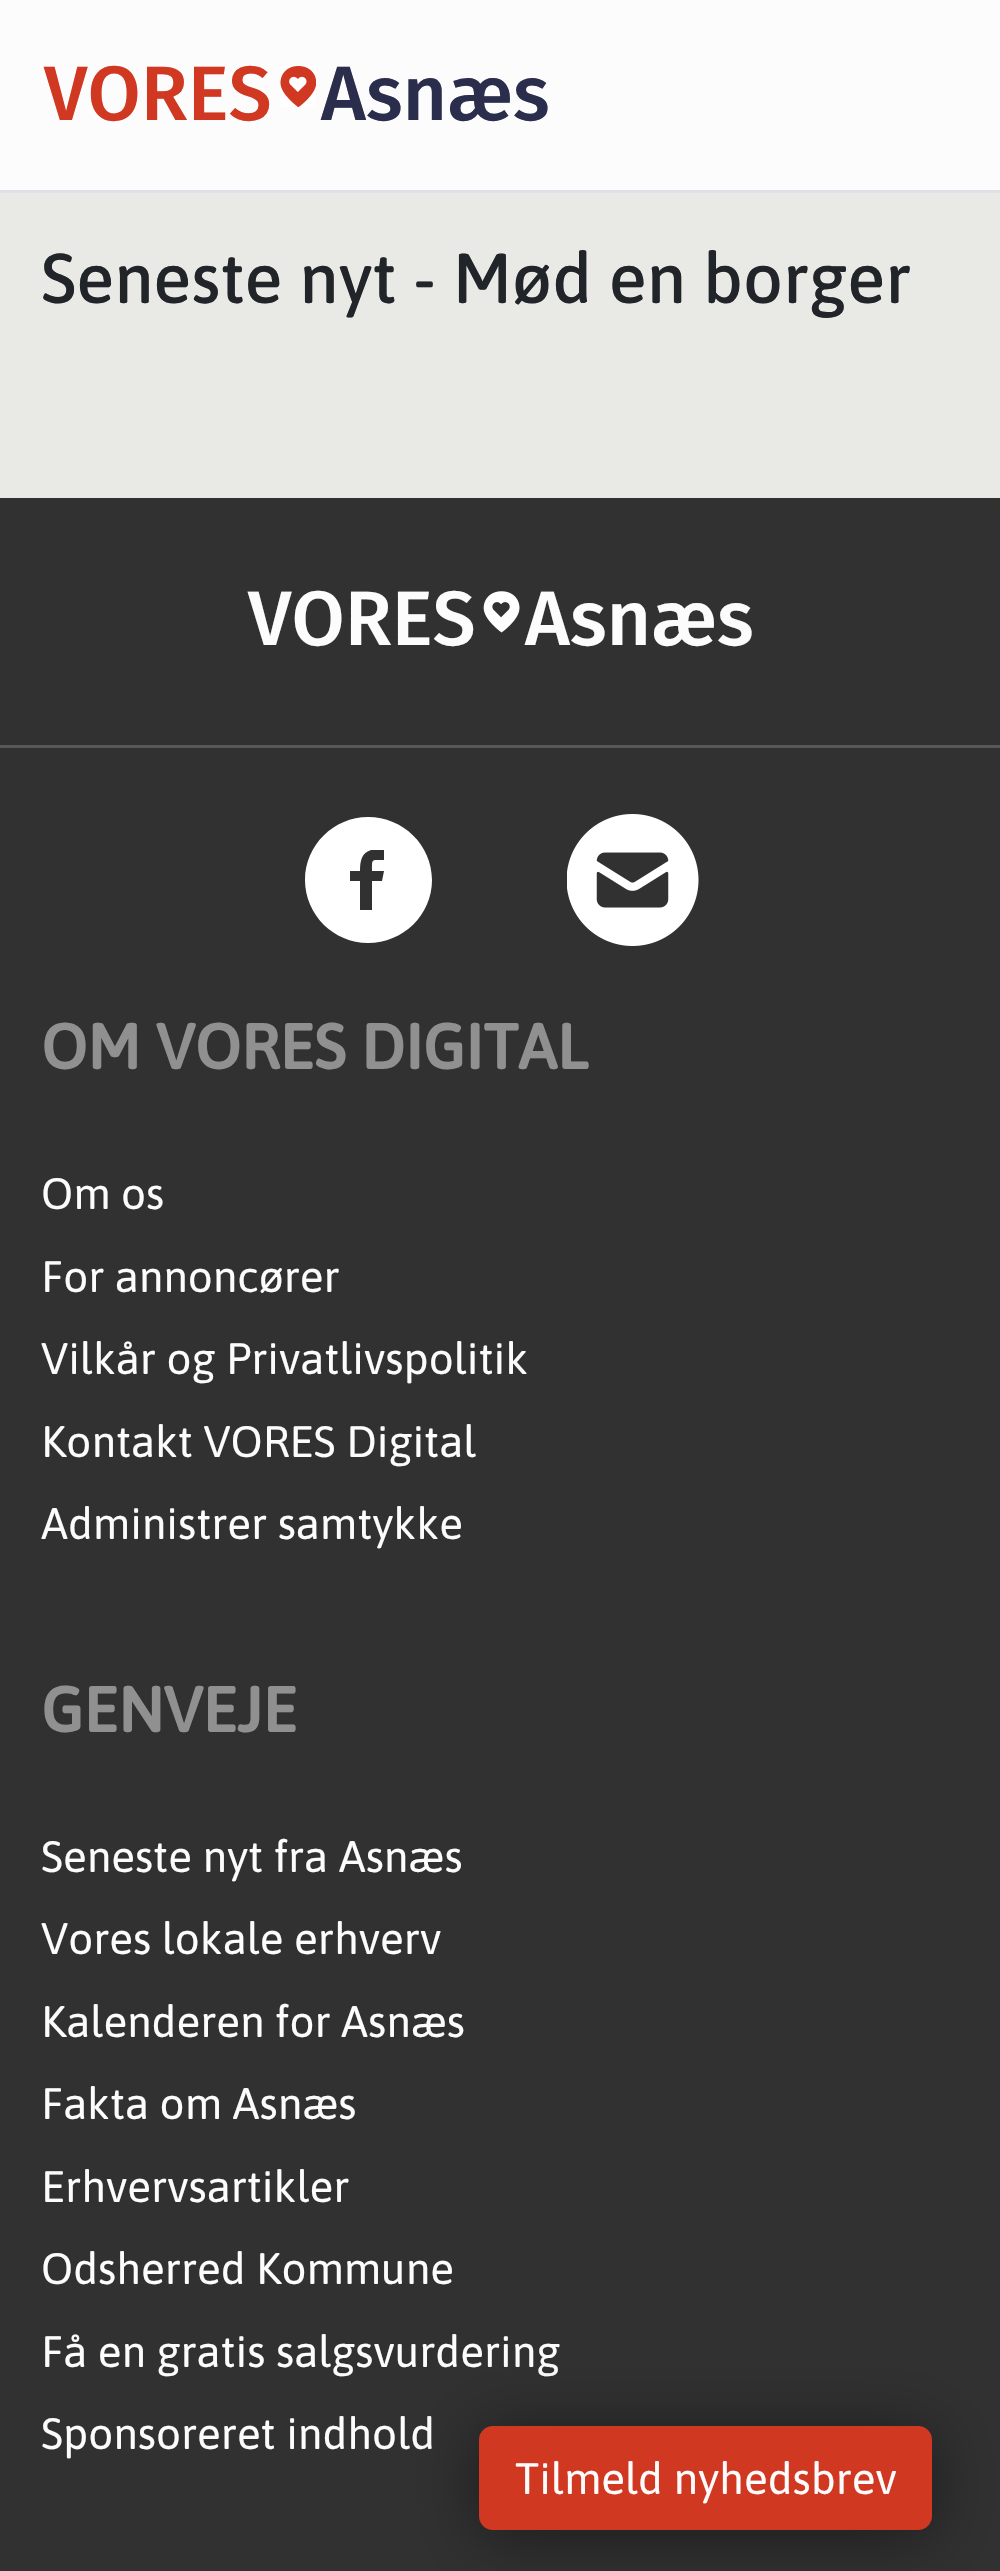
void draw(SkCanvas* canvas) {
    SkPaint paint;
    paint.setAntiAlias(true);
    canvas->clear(0xFFE9EAE5);
    paint.setColor(0xFFFCFCFC);
    canvas->drawRect(SkRect::MakeXYWH(0, 0, 1000, 190), paint);
    paint.setColor(0xFFDEE2E6);
    canvas->drawRect(SkRect::MakeXYWH(0, 190, 1000, 3), paint);
    SkFont font1(fontMgr->matchFamilyStyle("Fira Sans", SkFontStyle(500, SkFontStyle::kNormal_Width, SkFontStyle::kUpright_Slant)), 77);
    font1.setSubpixel(true);
    paint.setColor(0xFFD03822);
    canvas->drawString("VORES", 44, 120, font1, paint);
    canvas->drawImageRect(SkImages::DeferredFromEncodedData(SkData::MakeFromFileName("img1.png")), SkRect::MakeXYWH(280, 66, 36, 41), SkSamplingOptions());
    paint.setColor(0xFF2B2D4C);
    canvas->drawString("Asnæs", 321, 120, font1, paint);
    SkFont font2(fontMgr->matchFamilyStyle("Asap", SkFontStyle(500, SkFontStyle::kNormal_Width, SkFontStyle::kUpright_Slant)), 70.4f);
    font2.setSubpixel(true);
    paint.setColor(0xFF212529);
    canvas->drawString("Seneste nyt - Mød en borger", 41, 303, font2, paint);
    paint.setColor(0xFF323131);
    canvas->drawRect(SkRect::MakeXYWH(0, 498, 1000, 2073), paint);
    paint.setColor(0xFF595858);
    canvas->drawRect(SkRect::MakeXYWH(0, 745, 1000, 3), paint);
    paint.setColor(0xFFFCFCFC);
    canvas->drawString("VORES", 248, 645, font1, paint);
    canvas->drawImageRect(SkImages::DeferredFromEncodedData(SkData::MakeFromFileName("img2.png")), SkRect::MakeXYWH(483, 591, 37, 42), SkSamplingOptions());
    canvas->drawString("Asnæs", 525, 645, font1, paint);
    paint.setColor(0xFFFFFFFF);
    canvas->drawPath(SkPathBuilder().moveTo(368, 817).cubicTo(334, 817, 305, 845, 305, 880).cubicTo(305, 915, 334, 943, 368, 943).cubicTo(403, 943, 432, 915, 432, 880).cubicTo(432, 845, 403, 817, 368, 817).close().moveTo(384, 860).cubicTo(371, 860, 372, 858, 372, 871).lineTo(384, 871).lineTo(382, 881).lineTo(372, 881).lineTo(372, 910).lineTo(360, 910).lineTo(360, 881).lineTo(350, 881).lineTo(350, 871).lineTo(360, 871).cubicTo(360, 862, 361, 853, 371, 850).lineTo(384, 850).close().detach(), paint);
    canvas->drawImageRect(SkImages::DeferredFromEncodedData(SkData::MakeFromFileName("img3.png")), SkRect::MakeXYWH(567, 814, 132, 132), SkSamplingOptions());
    SkFont font3(fontMgr->matchFamilyStyle("Asap", SkFontStyle::Bold()), 63.25f);
    font3.setSubpixel(true);
    paint.setColor(0xFF909090);
    canvas->drawString("OM VORES DIGITAL", 41, 1069, font3, paint);
    SkFont font4(fontMgr->matchFamilyStyle("Asap", SkFontStyle::Normal()), 44);
    font4.setSubpixel(true);
    paint.setColor(0xFFFCFCFC);
    canvas->drawString("Om os", 41, 1209, font4, paint);
    canvas->drawString("For annoncører", 41, 1292, font4, paint);
    canvas->drawString("Vilkår og Privatlivspolitik", 41, 1374, font4, paint);
    canvas->drawString("Kontakt VORES Digital", 41, 1457, font4, paint);
    canvas->drawString("Administrer samtykke", 41, 1539, font4, paint);
    paint.setColor(0xFF909090);
    canvas->drawString("GENVEJE", 41, 1732, font3, paint);
    paint.setColor(0xFFFCFCFC);
    canvas->drawString("Seneste nyt fra Asnæs", 41, 1872, font4, paint);
    canvas->drawString("Vores lokale erhverv", 41, 1954, font4, paint);
    canvas->drawString("Kalenderen for Asnæs", 41, 2037, font4, paint);
    canvas->drawString("Fakta om Asnæs", 41, 2119, font4, paint);
    canvas->drawString("Erhvervsartikler", 41, 2202, font4, paint);
    canvas->drawString("Odsherred Kommune", 41, 2284, font4, paint);
    canvas->drawString("Få en gratis salgsvurdering", 41, 2367, font4, paint);
    canvas->drawString("Sponsoreret indhold", 41, 2449, font4, paint);
    paint.setColor(0x73000000);
    paint.setMaskFilter(SkMaskFilter::MakeBlur(kNormal_SkBlurStyle, 33));
    canvas->drawRoundRect(SkRect::MakeXYWH(479, 2431, 453, 105), 14, 14, paint);
    paint.setMaskFilter(nullptr);
    paint.setColor(0xFFD03822);
    canvas->drawRoundRect(SkRect::MakeXYWH(480.5f, 2427.5f, 450, 101), 12.5f, 12.5f, paint);
    paint.setStyle(SkPaint::kStroke_Style);
    paint.setStrokeWidth(3);
    canvas->drawRoundRect(SkRect::MakeXYWH(480.5f, 2427.5f, 450, 101), 12.5f, 12.5f, paint);
    paint.setStyle(SkPaint::kFill_Style);
    paint.setColor(0xFFFCFCFC);
    canvas->drawString("Tilmeld nyhedsbrev", 515, 2494, font4, paint);
}
